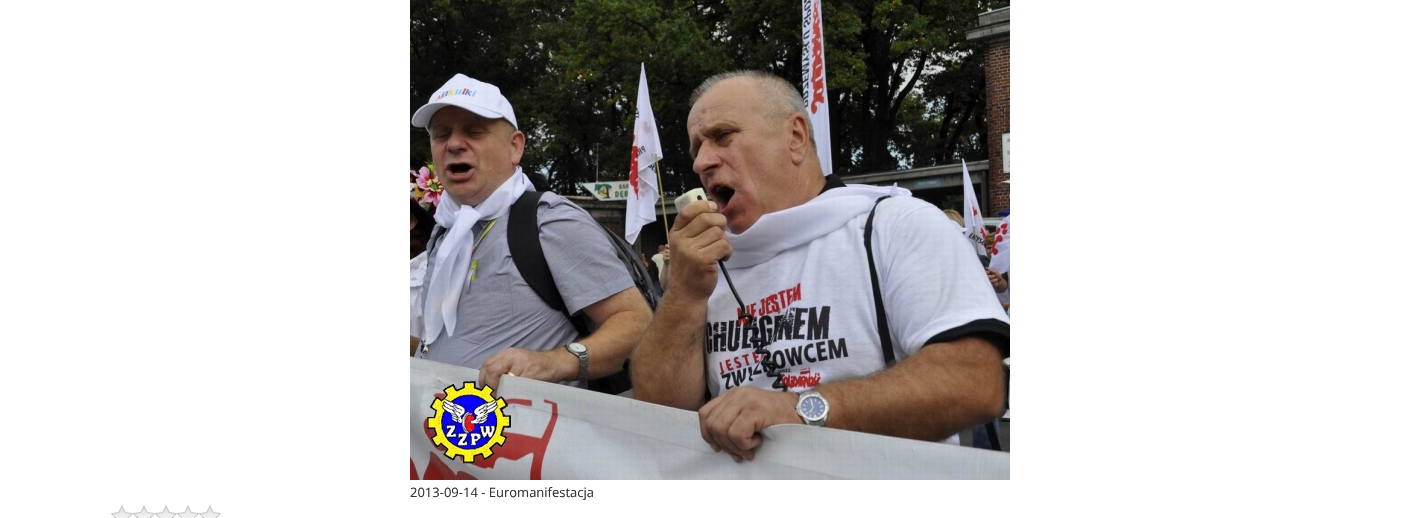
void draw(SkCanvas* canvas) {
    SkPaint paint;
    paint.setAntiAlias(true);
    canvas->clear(0xFFFFFFFF);
    canvas->drawImageRect(SkImages::DeferredFromEncodedData(SkData::MakeFromFileName("img1.png")), SkRect::MakeXYWH(410, 0, 600, 480), SkSamplingOptions());
    SkFont font1(fontMgr->matchFamilyStyle("Open Sans", SkFontStyle::Normal()), 13);
    font1.setSubpixel(true);
    paint.setColor(0xFF333333);
    canvas->drawString("2013-09-14 - Euromanifestacja", 410, 497, font1, paint);
    canvas->drawImageRect(SkImages::DeferredFromEncodedData(SkData::MakeFromFileName("img2.png")), SkRect::MakeXYWH(111, 505, 110, 13), SkSamplingOptions());
}
